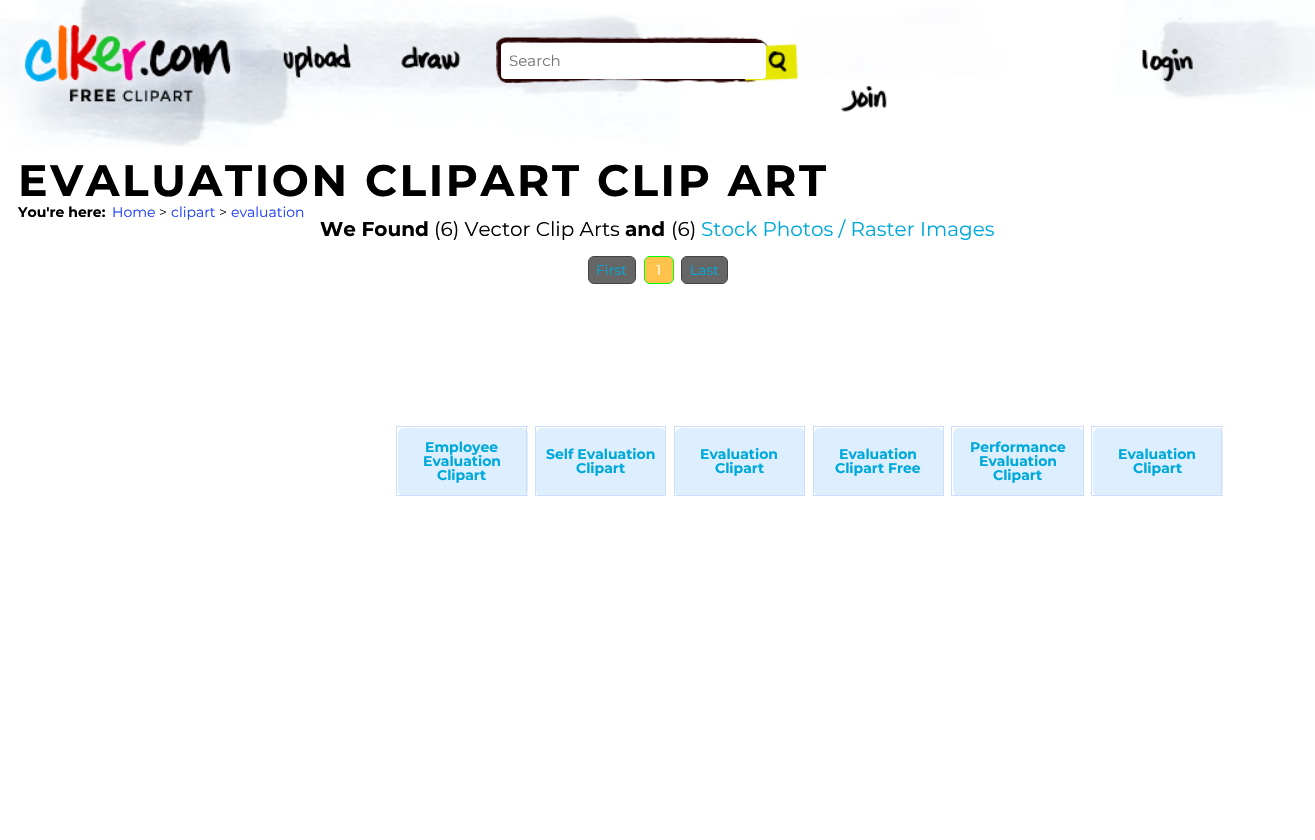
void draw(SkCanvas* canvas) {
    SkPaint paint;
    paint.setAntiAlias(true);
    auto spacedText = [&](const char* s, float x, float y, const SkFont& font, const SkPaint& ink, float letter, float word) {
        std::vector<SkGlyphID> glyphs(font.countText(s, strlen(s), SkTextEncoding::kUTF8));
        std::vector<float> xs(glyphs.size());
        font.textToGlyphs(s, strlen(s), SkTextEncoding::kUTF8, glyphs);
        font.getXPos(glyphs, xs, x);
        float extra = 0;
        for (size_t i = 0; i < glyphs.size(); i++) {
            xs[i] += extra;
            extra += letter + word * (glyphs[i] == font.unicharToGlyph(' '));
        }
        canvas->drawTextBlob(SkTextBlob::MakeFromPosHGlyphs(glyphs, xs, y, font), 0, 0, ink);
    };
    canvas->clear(0xFFFFFFFF);
    canvas->drawImageRect(SkImages::DeferredFromEncodedData(SkData::MakeFromFileName("img1.png")), SkRect::MakeXYWH(0, 0, 1315, 148), SkSamplingOptions());
    canvas->drawImageRect(SkImages::DeferredFromEncodedData(SkData::MakeFromFileName("img2.png")), SkRect::MakeXYWH(19, 16, 221, 86), SkSamplingOptions());
    canvas->drawImageRect(SkImages::DeferredFromEncodedData(SkData::MakeFromFileName("img3.png")), SkRect::MakeXYWH(283, 43, 69, 35), SkSamplingOptions());
    canvas->drawImageRect(SkImages::DeferredFromEncodedData(SkData::MakeFromFileName("img4.png")), SkRect::MakeXYWH(401, 46, 60, 25), SkSamplingOptions());
    canvas->drawImageRect(SkImages::DeferredFromEncodedData(SkData::MakeFromFileName("img5.png")), SkRect::MakeXYWH(496, 37, 302, 47), SkSamplingOptions());
    paint.setColor(0xFFFFFFFF);
    canvas->drawRoundRect(SkRect::MakeXYWH(501, 43, 265, 36), 4, 4, paint);
    SkFont font1(fontMgr->matchFamilyStyle("Montserrat", SkFontStyle::Normal()), 15);
    font1.setSubpixel(true);
    paint.setColor(0xFF757575);
    canvas->drawString("Search", 509, 66, font1, paint);
    canvas->drawImageRect(SkImages::DeferredFromEncodedData(SkData::MakeFromFileName("img6.png")), SkRect::MakeXYWH(1142, 48, 51, 34), SkSamplingOptions());
    canvas->drawImageRect(SkImages::DeferredFromEncodedData(SkData::MakeFromFileName("img7.png")), SkRect::MakeXYWH(841, 86, 46, 26), SkSamplingOptions());
    SkFont font2(fontMgr->matchFamilyStyle("Montserrat", SkFontStyle::Bold()), 44);
    font2.setSubpixel(true);
    paint.setColor(0xFF000000);
    spacedText("EVALUATION CLIPART CLIP ART", 18, 196, font2, paint, 2.65f, 0);
    SkFont font3(fontMgr->matchFamilyStyle("Montserrat", SkFontStyle::Bold()), 14);
    font3.setSubpixel(true);
    canvas->drawString("You're here:", 18, 217, font3, paint);
    SkFont font4(fontMgr->matchFamilyStyle("Montserrat", SkFontStyle::Normal()), 14);
    font4.setSubpixel(true);
    paint.setColor(0xFF2040FF);
    canvas->drawString("Home", 112, 217, font4, paint);
    paint.setColor(0xFF000000);
    canvas->drawString(">", 159, 217, font4, paint);
    paint.setColor(0xFF2040FF);
    canvas->drawString("clipart", 171, 217, font4, paint);
    paint.setColor(0xFF000000);
    canvas->drawString(">", 219, 217, font4, paint);
    paint.setColor(0xFF2040FF);
    canvas->drawString("evaluation", 231, 217, font4, paint);
    SkFont font5(fontMgr->matchFamilyStyle("Montserrat", SkFontStyle::Bold()), 20);
    font5.setSubpixel(true);
    paint.setColor(0xFF000000);
    canvas->drawString("We Found", 320, 236, font5, paint);
    SkFont font6(fontMgr->matchFamilyStyle("Montserrat", SkFontStyle::Normal()), 20);
    font6.setSubpixel(true);
    canvas->drawString("(6) Vector Clip Arts", 434, 236, font6, paint);
    canvas->drawString("and", 625, 236, font5, paint);
    canvas->drawString("(6)", 671, 236, font6, paint);
    paint.setColor(0xFF00A9DB);
    canvas->drawString("Stock Photos / Raster Images", 701, 236, font6, paint);
    paint.setColor(0xFF666666);
    canvas->drawRoundRect(SkRect::MakeXYWH(588.5f, 256.5f, 47, 27), 5.5f, 5.5f, paint);
    paint.setStyle(SkPaint::kStroke_Style);
    paint.setStrokeWidth(1);
    paint.setColor(0xFF444444);
    canvas->drawRoundRect(SkRect::MakeXYWH(588.5f, 256.5f, 47, 27), 5.5f, 5.5f, paint);
    paint.setStyle(SkPaint::kFill_Style);
    paint.setColor(0xFF00A9DB);
    canvas->drawString("First", 596, 275, font4, paint);
    paint.setColor(0xFFFFC34C);
    canvas->drawRoundRect(SkRect::MakeXYWH(644.5f, 256.5f, 29, 27), 5.5f, 5.5f, paint);
    paint.setStyle(SkPaint::kStroke_Style);
    paint.setColor(0xFF00FF00);
    canvas->drawRoundRect(SkRect::MakeXYWH(644.5f, 256.5f, 29, 27), 5.5f, 5.5f, paint);
    paint.setStyle(SkPaint::kFill_Style);
    paint.setColor(0xFFFFFFFF);
    canvas->drawString("1", 656, 275, font4, paint);
    paint.setColor(0xFF666666);
    canvas->drawRoundRect(SkRect::MakeXYWH(681.5f, 256.5f, 46, 27), 5.5f, 5.5f, paint);
    paint.setStyle(SkPaint::kStroke_Style);
    paint.setColor(0xFF444444);
    canvas->drawRoundRect(SkRect::MakeXYWH(681.5f, 256.5f, 46, 27), 5.5f, 5.5f, paint);
    paint.setStyle(SkPaint::kFill_Style);
    paint.setColor(0xFF00A9DB);
    canvas->drawString("Last", 690, 275, font4, paint);
    paint.setColor(0xFFDDEEFF);
    canvas->drawRoundRect(SkRect::MakeXYWH(398, 428, 130, 68), 6, 6, paint);
    paint.setColor(0xFFCCDDFF);
    canvas->drawRect(SkRect::MakeXYWH(396, 426, 132, 1), paint);
    canvas->drawRect(SkRect::MakeXYWH(526, 426, 1, 70), paint);
    canvas->drawRect(SkRect::MakeXYWH(396, 495, 132, 1), paint);
    canvas->drawRect(SkRect::MakeXYWH(396, 426, 1, 70), paint);
    paint.setColor(0xFF00A9DB);
    canvas->drawString("Employee", 425, 452, font3, paint);
    canvas->drawString("Evaluation", 423, 466, font3, paint);
    canvas->drawString("Clipart", 437, 480, font3, paint);
    paint.setColor(0xFFDDEEFF);
    canvas->drawRoundRect(SkRect::MakeXYWH(536, 428, 130, 68), 6, 6, paint);
    paint.setColor(0xFFCCDDFF);
    canvas->drawRect(SkRect::MakeXYWH(535, 426, 131, 1), paint);
    canvas->drawRect(SkRect::MakeXYWH(665, 426, 1, 70), paint);
    canvas->drawRect(SkRect::MakeXYWH(535, 495, 131, 1), paint);
    canvas->drawRect(SkRect::MakeXYWH(535, 426, 1, 70), paint);
    paint.setColor(0xFF00A9DB);
    canvas->drawString("Self Evaluation", 546, 459, font3, paint);
    canvas->drawString("Clipart", 576, 473, font3, paint);
    paint.setColor(0xFFDDEEFF);
    canvas->drawRoundRect(SkRect::MakeXYWH(675, 428, 130, 68), 6, 6, paint);
    paint.setColor(0xFFCCDDFF);
    canvas->drawRect(SkRect::MakeXYWH(674, 426, 131, 1), paint);
    canvas->drawRect(SkRect::MakeXYWH(804, 426, 1, 70), paint);
    canvas->drawRect(SkRect::MakeXYWH(674, 495, 131, 1), paint);
    canvas->drawRect(SkRect::MakeXYWH(674, 426, 1, 70), paint);
    paint.setColor(0xFF00A9DB);
    canvas->drawString("Evaluation", 700, 459, font3, paint);
    canvas->drawString("Clipart", 715, 473, font3, paint);
    paint.setColor(0xFFDDEEFF);
    canvas->drawRoundRect(SkRect::MakeXYWH(814, 428, 130, 68), 6, 6, paint);
    paint.setColor(0xFFCCDDFF);
    canvas->drawRect(SkRect::MakeXYWH(813, 426, 131, 1), paint);
    canvas->drawRect(SkRect::MakeXYWH(943, 426, 1, 70), paint);
    canvas->drawRect(SkRect::MakeXYWH(813, 495, 131, 1), paint);
    canvas->drawRect(SkRect::MakeXYWH(813, 426, 1, 70), paint);
    paint.setColor(0xFF00A9DB);
    canvas->drawString("Evaluation", 839, 459, font3, paint);
    canvas->drawString("Clipart Free", 835, 473, font3, paint);
    paint.setColor(0xFFDDEEFF);
    canvas->drawRoundRect(SkRect::MakeXYWH(953, 428, 131, 68), 6, 6, paint);
    paint.setColor(0xFFCCDDFF);
    canvas->drawRect(SkRect::MakeXYWH(951, 426, 133, 1), paint);
    canvas->drawRect(SkRect::MakeXYWH(1083, 426, 1, 70), paint);
    canvas->drawRect(SkRect::MakeXYWH(951, 495, 133, 1), paint);
    canvas->drawRect(SkRect::MakeXYWH(951, 426, 1, 70), paint);
    paint.setColor(0xFF00A9DB);
    canvas->drawString("Performance", 970, 452, font3, paint);
    canvas->drawString("Evaluation", 979, 466, font3, paint);
    canvas->drawString("Clipart", 993, 480, font3, paint);
    paint.setColor(0xFFDDEEFF);
    canvas->drawRoundRect(SkRect::MakeXYWH(1093, 428, 130, 68), 6, 6, paint);
    paint.setColor(0xFFCCDDFF);
    canvas->drawRect(SkRect::MakeXYWH(1091, 426, 132, 1), paint);
    canvas->drawRect(SkRect::MakeXYWH(1221, 426, 1, 70), paint);
    canvas->drawRect(SkRect::MakeXYWH(1091, 495, 132, 1), paint);
    canvas->drawRect(SkRect::MakeXYWH(1091, 426, 1, 70), paint);
    paint.setColor(0xFF00A9DB);
    canvas->drawString("Evaluation", 1118, 459, font3, paint);
    canvas->drawString("Clipart", 1133, 473, font3, paint);
}
